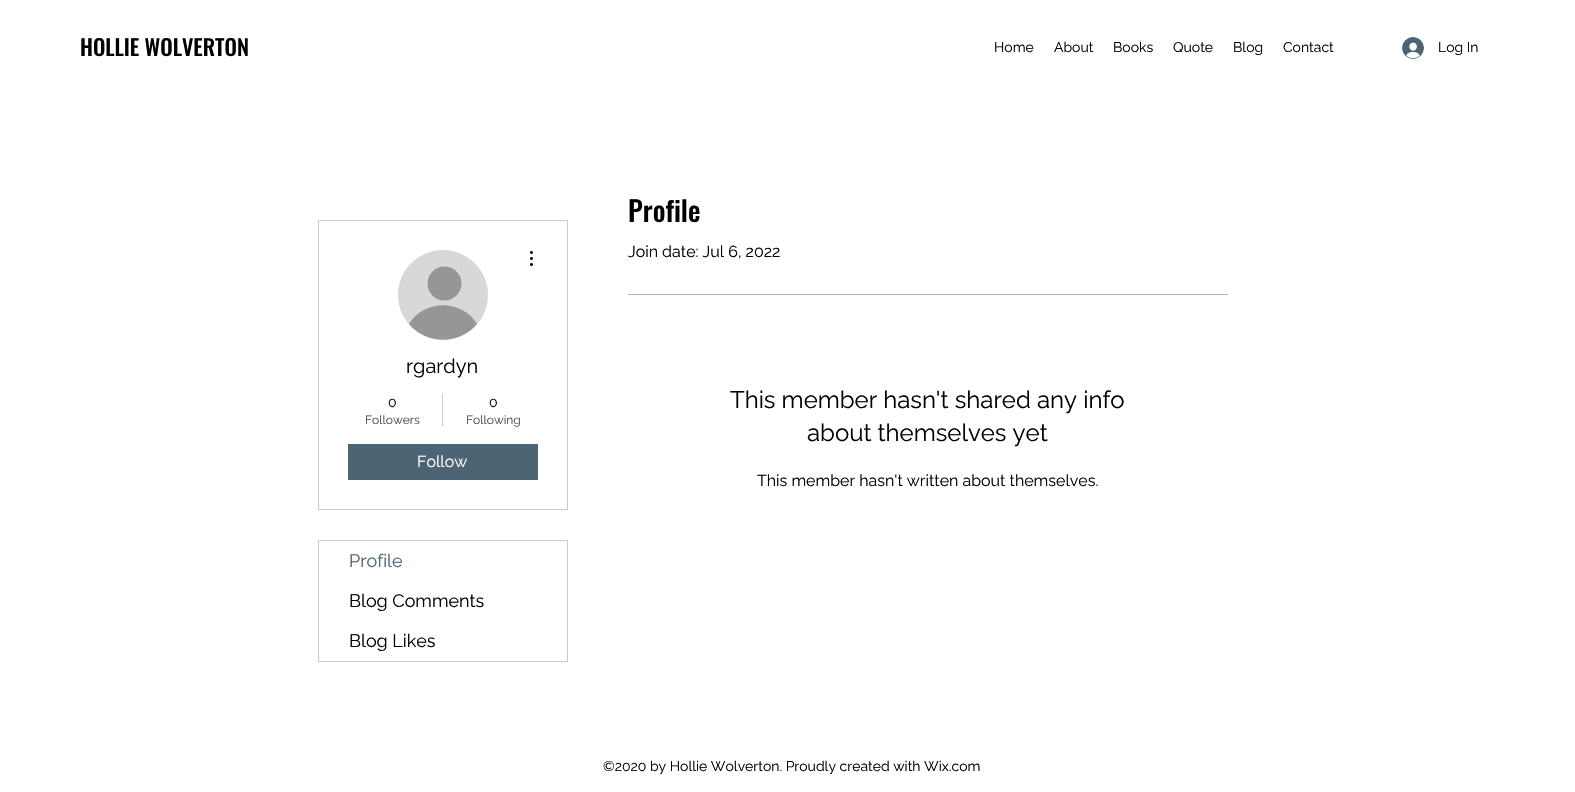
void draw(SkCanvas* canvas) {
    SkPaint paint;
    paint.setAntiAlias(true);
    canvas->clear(0xFFFFFFFF);
    SkFont font1(fontMgr->matchFamilyStyle("Oswald", SkFontStyle(500, SkFontStyle::kNormal_Width, SkFontStyle::kUpright_Slant)), 22);
    font1.setSubpixel(true);
    paint.setColor(0xFF000000);
    canvas->drawString("HOLLIE WOLVERTON", 80, 56, font1, paint);
    SkFont font2(fontMgr->matchFamilyStyle("Raleway", SkFontStyle::Normal()), 14);
    font2.setSubpixel(true);
    canvas->drawString("Home", 994, 52, font2, paint);
    canvas->drawString("About", 1054, 52, font2, paint);
    canvas->drawString("Books", 1113, 52, font2, paint);
    canvas->drawString("Quote", 1173, 52, font2, paint);
    canvas->drawString("Blog", 1233, 52, font2, paint);
    canvas->drawString("Contact", 1283, 52, font2, paint);
    canvas->drawImageRect(SkImages::DeferredFromEncodedData(SkData::MakeFromFileName("img1.png")), SkRect::MakeXYWH(1402, 37, 22, 22), SkSamplingOptions());
    canvas->drawString("Log In", 1438, 52, font2, paint);
    paint.setStyle(SkPaint::kStroke_Style);
    paint.setStrokeWidth(1);
    paint.setColor(0xFFCCCCCC);
    canvas->drawRect(SkRect::MakeXYWH(318.5f, 220.5f, 249, 289), paint);
    paint.setStyle(SkPaint::kFill_Style);
    paint.setColor(0xFFD8D8D8);
    canvas->drawCircle(443, 295, 45, paint);
    paint.setColor(0xFF969696);
    canvas->drawCircle(444.5f, 283.5f, 17, paint);
    canvas->drawPath(SkPathBuilder().moveTo(477, 324).cubicTo(459, 345, 427, 345, 409, 324).cubicTo(424, 299, 462, 299, 477, 324).close().detach(), paint);
    canvas->drawImageRect(SkImages::DeferredFromEncodedData(SkData::MakeFromFileName("img2.png")), SkRect::MakeXYWH(530, 251, 3, 15), SkSamplingOptions());
    SkFont font3(fontMgr->matchFamilyStyle("Raleway", SkFontStyle::Normal()), 20);
    font3.setSubpixel(true);
    paint.setColor(0xFF000000);
    canvas->drawString("rgardyn", 406, 373, font3, paint);
    canvas->drawString("0", 388, 407, font2, paint);
    SkFont font4(fontMgr->matchFamilyStyle("Raleway", SkFontStyle::Normal()), 12);
    font4.setSubpixel(true);
    paint.setColor(0xFF4D4D4D);
    canvas->drawString("Followers", 365, 424, font4, paint);
    paint.setColor(0xFFCCCCCC);
    canvas->drawRect(SkRect::MakeXYWH(442, 394, 1, 32), paint);
    paint.setColor(0xFF000000);
    canvas->drawString("0", 489, 407, font2, paint);
    paint.setColor(0xFF4D4D4D);
    canvas->drawString("Following", 466, 424, font4, paint);
    paint.setColor(0xFF4C6474);
    canvas->drawRect(SkRect::MakeXYWH(348, 444, 190, 36), paint);
    SkFont font5(fontMgr->matchFamilyStyle("Raleway", SkFontStyle::Normal()), 16);
    font5.setSubpixel(true);
    paint.setColor(0xFFFFFFFF);
    canvas->drawString("Follow", 417, 467, font5, paint);
    paint.setStyle(SkPaint::kStroke_Style);
    paint.setColor(0xFFCCCCCC);
    canvas->drawRect(SkRect::MakeXYWH(318.5f, 540.5f, 249, 121), paint);
    SkFont font6(fontMgr->matchFamilyStyle("Raleway", SkFontStyle::Normal()), 18);
    font6.setSubpixel(true);
    paint.setStyle(SkPaint::kFill_Style);
    paint.setColor(0xFF4C6474);
    canvas->drawString("Profile", 349, 567, font6, paint);
    paint.setColor(0xFF000000);
    canvas->drawString("Blog Comments", 349, 607, font6, paint);
    canvas->drawString("Blog Likes", 349, 647, font6, paint);
    SkFont font7(fontMgr->matchFamilyStyle("Oswald", SkFontStyle(500, SkFontStyle::kNormal_Width, SkFontStyle::kUpright_Slant)), 28);
    font7.setSubpixel(true);
    canvas->drawString("Profile", 628, 222, font7, paint);
    canvas->drawString("Join date: Jul 6, 2022", 628, 257, font5, paint);
    paint.setColor(0xFFB3B3B3);
    canvas->drawRect(SkRect::MakeXYWH(628, 294, 600, 1), paint);
    SkFont font8(fontMgr->matchFamilyStyle("Raleway", SkFontStyle::Normal()), 24);
    font8.setSubpixel(true);
    paint.setColor(0xFF000000);
    canvas->drawString("This member hasn't shared any info", 730, 408, font8, paint);
    canvas->drawString("about themselves yet", 807, 441, font8, paint);
    canvas->drawString("This member hasn't written about themselves.", 757, 486, font5, paint);
    canvas->drawString("©2020 by Hollie Wolverton. Proudly created with Wix.com", 603, 771, font2, paint);
}
